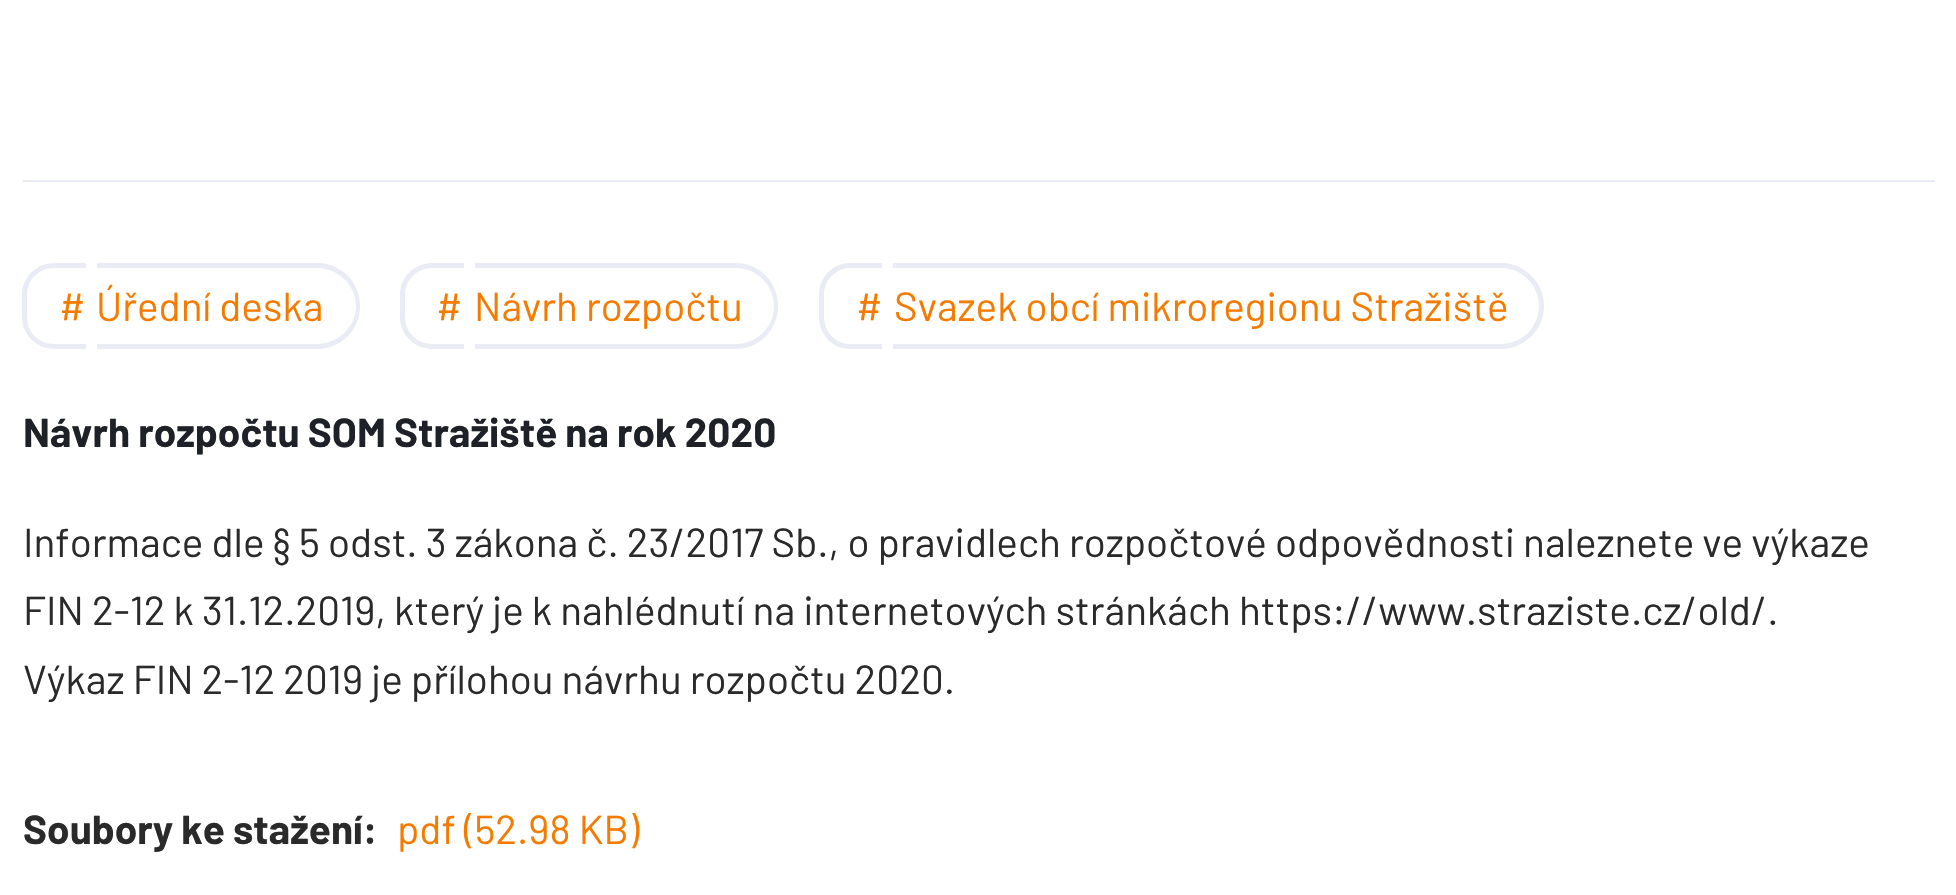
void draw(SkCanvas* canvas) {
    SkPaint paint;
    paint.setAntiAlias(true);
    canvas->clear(0xFFFFFFFF);
    paint.setColor(0xFFE9EBF5);
    canvas->drawRect(SkRect::MakeXYWH(23, 180, 1912, 2), paint);
    canvas->drawPath(SkPathBuilder(SkPathFillType::kEvenOdd).moveTo(54, 263).lineTo(86, 263).lineTo(86, 349).lineTo(54, 349).cubicTo(37, 349, 22, 335, 22, 317).lineTo(22, 295).cubicTo(22, 277, 37, 263, 54, 263).close().moveTo(54, 268).lineTo(86, 268).lineTo(86, 344).lineTo(54, 344).cubicTo(39, 344, 27, 332, 27, 317).lineTo(27, 295).cubicTo(27, 280, 39, 268, 54, 268).close().detach(), paint);
    SkFont font1(fontMgr->matchFamilyStyle("Barlow", SkFontStyle::Normal()), 40.5f);
    font1.setSubpixel(true);
    paint.setColor(0xFFF57B00);
    canvas->drawString("#", 59, 321, font1, paint);
    paint.setColor(0xFFE9EBF5);
    canvas->drawPath(SkPathBuilder(SkPathFillType::kEvenOdd).moveTo(97, 263).lineTo(317, 263).cubicTo(341, 263, 360, 282, 360, 306).cubicTo(360, 330, 341, 349, 317, 349).lineTo(97, 349).close().moveTo(97, 268).lineTo(317, 268).cubicTo(338, 268, 356, 285, 356, 306).cubicTo(356, 327, 338, 344, 317, 344).lineTo(97, 344).close().detach(), paint);
    paint.setColor(0xFFF57B00);
    canvas->drawString("Úřední deska", 96, 321, font1, paint);
    paint.setColor(0xFFE9EBF5);
    canvas->drawPath(SkPathBuilder(SkPathFillType::kEvenOdd).moveTo(432, 263).lineTo(464, 263).lineTo(464, 349).lineTo(432, 349).cubicTo(415, 349, 400, 335, 400, 317).lineTo(400, 295).cubicTo(400, 277, 415, 263, 432, 263).close().moveTo(432, 268).lineTo(464, 268).lineTo(464, 344).lineTo(432, 344).cubicTo(417, 344, 405, 332, 405, 317).lineTo(405, 295).cubicTo(405, 280, 417, 268, 432, 268).close().detach(), paint);
    paint.setColor(0xFFF57B00);
    canvas->drawString("#", 436, 321, font1, paint);
    paint.setColor(0xFFE9EBF5);
    canvas->drawPath(SkPathBuilder(SkPathFillType::kEvenOdd).moveTo(475, 263).lineTo(736, 263).cubicTo(759, 263, 778, 282, 778, 306).cubicTo(778, 330, 759, 349, 736, 349).lineTo(475, 349).close().moveTo(475, 268).lineTo(736, 268).cubicTo(757, 268, 774, 285, 774, 306).cubicTo(774, 327, 757, 344, 736, 344).lineTo(475, 344).close().detach(), paint);
    paint.setColor(0xFFF57B00);
    canvas->drawString("Návrh rozpočtu", 474, 321, font1, paint);
    paint.setColor(0xFFE9EBF5);
    canvas->drawPath(SkPathBuilder(SkPathFillType::kEvenOdd).moveTo(850, 263).lineTo(882, 263).lineTo(882, 349).lineTo(850, 349).cubicTo(833, 349, 819, 335, 819, 317).lineTo(819, 295).cubicTo(819, 277, 833, 263, 850, 263).close().moveTo(850, 268).lineTo(882, 268).lineTo(882, 344).lineTo(850, 344).cubicTo(836, 344, 824, 332, 824, 317).lineTo(824, 295).cubicTo(824, 280, 836, 268, 850, 268).close().detach(), paint);
    paint.setColor(0xFFF57B00);
    canvas->drawString("#", 856, 321, font1, paint);
    paint.setColor(0xFFE9EBF5);
    canvas->drawPath(SkPathBuilder(SkPathFillType::kEvenOdd).moveTo(893, 263).lineTo(1501, 263).cubicTo(1524, 263, 1544, 282, 1544, 306).cubicTo(1544, 330, 1524, 349, 1501, 349).lineTo(893, 349).close().moveTo(893, 268).lineTo(1501, 268).cubicTo(1522, 268, 1539, 285, 1539, 306).cubicTo(1539, 327, 1522, 344, 1501, 344).lineTo(893, 344).close().detach(), paint);
    paint.setColor(0xFFF57B00);
    canvas->drawString("Svazek obcí mikroregionu Stražiště", 894, 321, font1, paint);
    SkFont font2(fontMgr->matchFamilyStyle("Barlow", SkFontStyle::Bold()), 40.5f);
    font2.setSubpixel(true);
    paint.setColor(0xFF1E2127);
    canvas->drawString("Návrh rozpočtu SOM Stražiště na rok 2020", 23, 447, font2, paint);
    paint.setColor(0xFF2A2A2A);
    canvas->drawString("Informace dle § 5 odst. 3 zákona č. 23/2017 Sb., o pravidlech rozpočtové odpovědnosti naleznete ve výkaze", 23, 557, font1, paint);
    canvas->drawString("FIN 2-12 k 31.12.2019, který je k nahlédnutí na internetových stránkách https://www.straziste.cz/old/.", 23, 625, font1, paint);
    canvas->drawString("Výkaz FIN 2-12 2019 je přílohou návrhu rozpočtu 2020.", 23, 694, font1, paint);
    canvas->drawString("Soubory ke stažení:", 23, 844, font2, paint);
    paint.setColor(0xFFF57B00);
    canvas->drawString("pdf (52.98 KB)", 397, 844, font1, paint);
}
